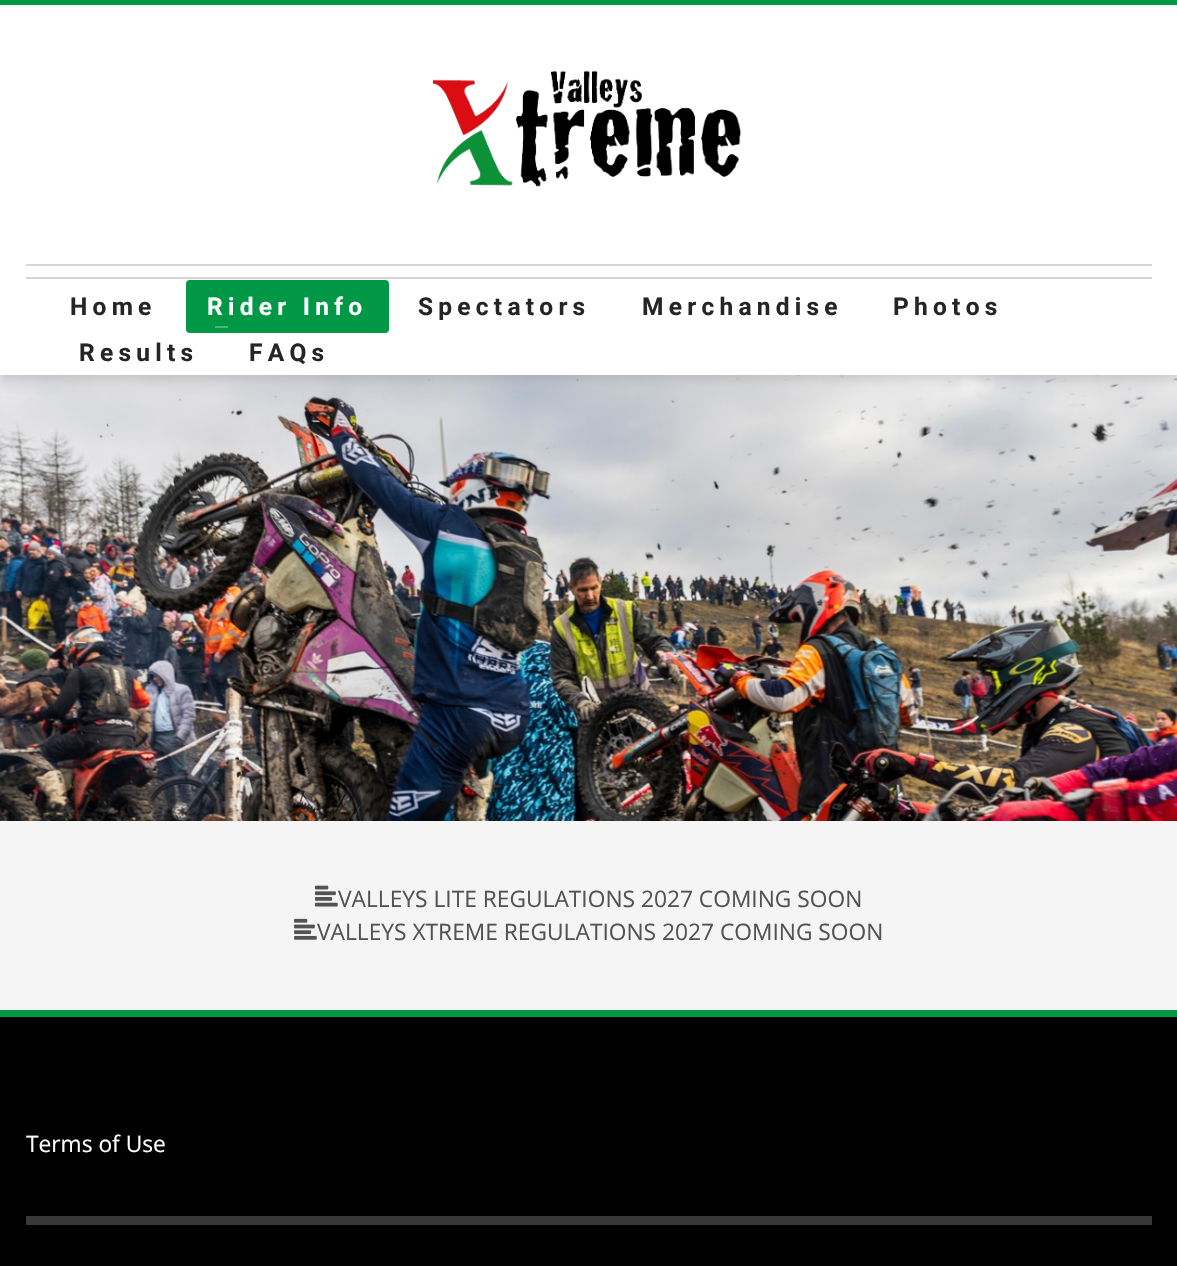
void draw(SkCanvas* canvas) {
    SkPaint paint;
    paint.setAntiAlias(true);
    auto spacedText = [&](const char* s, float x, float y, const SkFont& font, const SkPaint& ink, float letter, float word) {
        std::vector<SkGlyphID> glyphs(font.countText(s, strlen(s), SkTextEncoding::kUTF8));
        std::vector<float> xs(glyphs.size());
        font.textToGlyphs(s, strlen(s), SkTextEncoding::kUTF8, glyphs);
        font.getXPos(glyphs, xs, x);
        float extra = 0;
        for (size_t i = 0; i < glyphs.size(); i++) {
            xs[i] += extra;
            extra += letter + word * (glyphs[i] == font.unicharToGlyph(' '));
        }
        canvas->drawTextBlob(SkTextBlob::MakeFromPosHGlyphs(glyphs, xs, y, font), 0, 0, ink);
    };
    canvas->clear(0xFFF5F5F5);
    canvas->drawImageRect(SkImages::DeferredFromEncodedData(SkData::MakeFromFileName("img2.png")), SkRect::MakeXYWH(0, 374, 1177, 447), SkSamplingOptions());
    canvas->save();
    canvas->clipPath(SkPathBuilder(SkPathFillType::kEvenOdd).moveTo(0, 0).lineTo(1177, 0).lineTo(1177, 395).lineTo(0, 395).close().moveTo(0, 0).lineTo(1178, 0).lineTo(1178, 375).lineTo(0, 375).close().detach(), true);
    paint.setColor(0x1A000000);
    paint.setMaskFilter(SkMaskFilter::MakeBlur(kNormal_SkBlurStyle, 4.5f));
    canvas->drawRect(SkRect::MakeXYWH(0, 5, 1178, 375), paint);
    paint.setMaskFilter(nullptr);
    canvas->restore();
    paint.setColor(0xF2FFFFFF);
    canvas->drawRect(SkRect::MakeXYWH(0, 5, 1177, 370), paint);
    paint.setColor(0xFF009846);
    canvas->drawRect(SkRect::MakeXYWH(0, 0, 1177, 5), paint);
    canvas->drawImageRect(SkImages::DeferredFromEncodedData(SkData::MakeFromFileName("img1.png")), SkRect::MakeXYWH(432, 70, 310, 117), SkSamplingOptions());
    paint.setColor(0xFFD6D6D6);
    canvas->drawRect(SkRect::MakeXYWH(26, 264, 1126, 2), paint);
    canvas->drawRect(SkRect::MakeXYWH(26, 277, 1126, 2), paint);
    SkFont font1(fontMgr->matchFamilyStyle("Roboto", SkFontStyle::Bold()), 24.5f);
    font1.setSubpixel(true);
    paint.setColor(0xFF252525);
    spacedText("Home", 70, 315, font1, paint, 5.25f, 0);
    paint.setColor(0xFF009846);
    canvas->drawRoundRect(SkRect::MakeXYWH(186, 280, 203, 53), 4, 4, paint);
    paint.setColor(0xFFFFFFFF);
    spacedText("Rider Info", 207, 315, font1, paint, 5.25f, 0);
    paint.setColor(0xFF48B57A);
    canvas->drawRect(SkRect::MakeXYWH(215, 326, 13, 2), paint);
    paint.setColor(0xFF252525);
    spacedText("Spectators", 418, 315, font1, paint, 5.25f, 0);
    spacedText("Merchandise", 642, 315, font1, paint, 5.25f, 0);
    spacedText("Photos", 893, 315, font1, paint, 5.25f, 0);
    spacedText("Results", 79, 361, font1, paint, 5.25f, 0);
    spacedText("FAQs", 249, 361, font1, paint, 5.25f, 0);
    canvas->drawImageRect(SkImages::DeferredFromEncodedData(SkData::MakeFromFileName("img3.png")), SkRect::MakeXYWH(315, 885, 23, 22), SkSamplingOptions());
    SkFont font2(fontMgr->matchFamilyStyle("Open Sans", SkFontStyle::Normal()), 22.75f);
    font2.setSubpixel(true);
    paint.setColor(0xFF535353);
    canvas->drawString("VALLEYS LITE REGULATIONS 2027 COMING SOON", 338, 907, font2, paint);
    canvas->drawImageRect(SkImages::DeferredFromEncodedData(SkData::MakeFromFileName("img4.png")), SkRect::MakeXYWH(294, 918, 23, 22), SkSamplingOptions());
    canvas->drawString("VALLEYS XTREME REGULATIONS 2027 COMING SOON", 317, 940, font2, paint);
    paint.setColor(0xFF000000);
    canvas->drawRect(SkRect::MakeXYWH(0, 1017, 1177, 249), paint);
    paint.setColor(0xFF009846);
    canvas->drawRect(SkRect::MakeXYWH(0, 1010, 1177, 7), paint);
    paint.setColor(0xFFFFFFFF);
    canvas->drawString("Terms of Use", 26, 1152, font2, paint);
    paint.setColor(0xFF383838);
    canvas->drawRect(SkRect::MakeXYWH(26, 1216, 1126, 9), paint);
}
